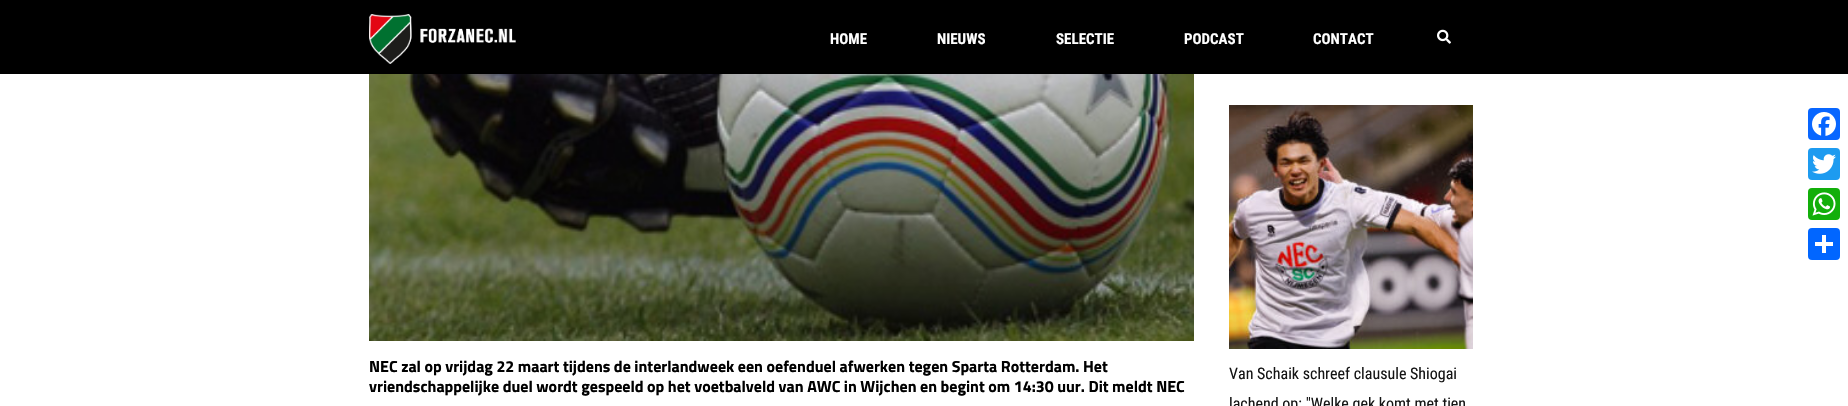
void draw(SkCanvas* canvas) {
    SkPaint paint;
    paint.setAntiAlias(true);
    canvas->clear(0xFFFFFFFF);
    paint.setColor(0xFF000000);
    canvas->drawRect(SkRect::MakeXYWH(0, 0, 1848, 74), paint);
    canvas->drawImageRect(SkImages::DeferredFromEncodedData(SkData::MakeFromFileName("img1.png")), SkRect::MakeXYWH(369, 14, 147, 50), SkSamplingOptions());
    SkFont font1(fontMgr->matchFamilyStyle("Roboto Condensed", SkFontStyle::Bold()), 15);
    font1.setSubpixel(true);
    paint.setColor(0xFFFFFFFF);
    canvas->drawString("HOME", 830, 44, font1, paint);
    canvas->drawString("NIEUWS", 937, 44, font1, paint);
    canvas->drawString("SELECTIE", 1056, 44, font1, paint);
    canvas->drawString("PODCAST", 1184, 44, font1, paint);
    canvas->drawString("CONTACT", 1313, 44, font1, paint);
    canvas->drawImageRect(SkImages::DeferredFromEncodedData(SkData::MakeFromFileName("img2.png")), SkRect::MakeXYWH(1437, 29, 14, 15), SkSamplingOptions());
    canvas->drawImageRect(SkImages::DeferredFromEncodedData(SkData::MakeFromFileName("img3.png")), SkRect::MakeXYWH(369, 74, 825, 267), SkSamplingOptions());
    SkFont font2(fontMgr->matchFamilyStyle("Titillium Web", SkFontStyle::Bold()), 16);
    font2.setSubpixel(true);
    paint.setColor(0xFF000000);
    canvas->drawString("NEC zal op vrijdag 22 maart tijdens de interlandweek een oefenduel afwerken tegen Sparta Rotterdam. Het", 369, 372, font2, paint);
    canvas->drawString("vriendschappelijke duel wordt gespeeld op het voetbalveld van AWC in Wijchen en begint om 14:30 uur. Dit meldt NEC", 369, 392, font2, paint);
    canvas->drawImageRect(SkImages::DeferredFromEncodedData(SkData::MakeFromFileName("img4.png")), SkRect::MakeXYWH(1229, 105, 244, 244), SkSamplingOptions());
    SkFont font3(fontMgr->matchFamilyStyle("Roboto Condensed", SkFontStyle::Normal()), 16);
    font3.setSubpixel(true);
    paint.setColor(0xFF151515);
    canvas->drawString("Van Schaik schreef clausule Shiogai", 1229, 379, font3, paint);
    canvas->drawString("lachend op: \"Welke gek komt met tien", 1229, 409, font3, paint);
    paint.setColor(0xFF0866FF);
    canvas->drawRoundRect(SkRect::MakeXYWH(1808, 108, 32, 32), 4, 4, paint);
    canvas->drawImageRect(SkImages::DeferredFromEncodedData(SkData::MakeFromFileName("img5.png")), SkRect::MakeXYWH(1812, 112, 24, 24), SkSamplingOptions());
    paint.setColor(0xFF1D9BF0);
    canvas->drawRoundRect(SkRect::MakeXYWH(1808, 148, 32, 32), 4, 4, paint);
    canvas->drawImageRect(SkImages::DeferredFromEncodedData(SkData::MakeFromFileName("img6.png")), SkRect::MakeXYWH(1812, 154, 24, 20), SkSamplingOptions());
    paint.setColor(0xFF12AF0A);
    canvas->drawRoundRect(SkRect::MakeXYWH(1808, 188, 32, 32), 4, 4, paint);
    canvas->drawImageRect(SkImages::DeferredFromEncodedData(SkData::MakeFromFileName("img7.png")), SkRect::MakeXYWH(1812, 192, 24, 24), SkSamplingOptions());
    paint.setColor(0xFF0166FF);
    canvas->drawRoundRect(SkRect::MakeXYWH(1808, 228, 32, 32), 4, 4, paint);
    paint.setColor(0xFFFFFFFF);
    canvas->drawRect(SkRect::MakeXYWH(1822, 235, 4, 18), paint);
    canvas->drawRect(SkRect::MakeXYWH(1815, 242, 18, 4), paint);
}
